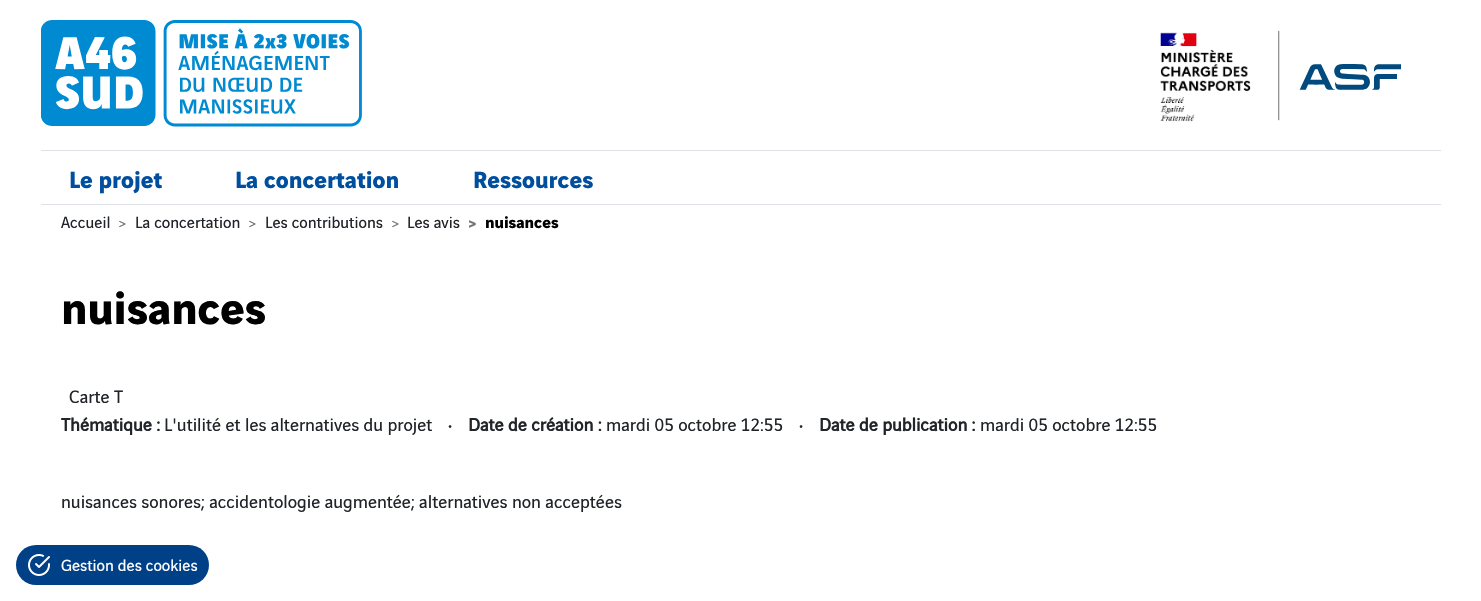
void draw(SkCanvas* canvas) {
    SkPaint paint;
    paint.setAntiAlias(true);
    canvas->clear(0xFFFFFFFF);
    paint.setColor(0xFFDEE2E6);
    canvas->drawRect(SkRect::MakeXYWH(41, 150, 1400, 1), paint);
    canvas->drawImageRect(SkImages::DeferredFromEncodedData(SkData::MakeFromFileName("img1.png")), SkRect::MakeXYWH(41, 20, 321, 107), SkSamplingOptions());
    canvas->drawImageRect(SkImages::DeferredFromEncodedData(SkData::MakeFromFileName("img2.png")), SkRect::MakeXYWH(1160, 30, 241, 92), SkSamplingOptions());
    canvas->drawRect(SkRect::MakeXYWH(41, 204, 1400, 1), paint);
    SkFont font1(fontMgr->matchFamilyStyle("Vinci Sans", SkFontStyle::Bold()), 25);
    font1.setSubpixel(true);
    paint.setColor(0xFF004F9F);
    canvas->drawString("Le projet", 69, 188, font1, paint);
    canvas->drawString("La concertation", 235, 188, font1, paint);
    canvas->drawString("Ressources", 473, 188, font1, paint);
    SkFont font2(fontMgr->matchFamilyStyle("Vinci Sans", SkFontStyle::Normal()), 17.25f);
    font2.setSubpixel(true);
    paint.setColor(0xFF212529);
    canvas->drawString("Accueil", 61, 228, font2, paint);
    paint.setColor(0xFF6C757D);
    canvas->drawString(">", 118, 228, font2, paint);
    paint.setColor(0xFF212529);
    canvas->drawString("La concertation", 135, 228, font2, paint);
    paint.setColor(0xFF6C757D);
    canvas->drawString(">", 248, 228, font2, paint);
    paint.setColor(0xFF212529);
    canvas->drawString("Les contributions", 265, 228, font2, paint);
    paint.setColor(0xFF6C757D);
    canvas->drawString(">", 391, 228, font2, paint);
    paint.setColor(0xFF212529);
    canvas->drawString("Les avis", 407, 228, font2, paint);
    SkFont font3(fontMgr->matchFamilyStyle("Vinci Sans", SkFontStyle::Bold()), 17.25f);
    font3.setSubpixel(true);
    paint.setColor(0xFF6C757D);
    canvas->drawString(">", 468, 228, font3, paint);
    paint.setColor(0xFF000000);
    canvas->drawString("nuisances", 485, 228, font3, paint);
    SkFont font4(fontMgr->matchFamilyStyle("Vinci Sans", SkFontStyle::Bold()), 48);
    font4.setSubpixel(true);
    canvas->drawString("nuisances", 61, 324, font4, paint);
    SkFont font5(fontMgr->matchFamilyStyle("Vinci Sans", SkFontStyle::Normal()), 19.2f);
    font5.setSubpixel(true);
    paint.setColor(0xFF212529);
    canvas->drawString("Carte T", 69, 403, font5, paint);
    SkFont font6(fontMgr->matchFamilyStyle("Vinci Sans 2", SkFontStyle::Bold()), 19.2f);
    font6.setSubpixel(true);
    canvas->drawString("Thématique :", 61, 431, font6, paint);
    canvas->drawString("L'utilité et les alternatives du projet", 164, 431, font5, paint);
    canvas->drawString("•", 448, 431, font5, paint);
    canvas->drawString("Date de création :", 468, 431, font6, paint);
    canvas->drawString("mardi 05 octobre 12:55", 606, 431, font5, paint);
    canvas->drawString("•", 799, 431, font5, paint);
    canvas->drawString("Date de publication :", 819, 431, font6, paint);
    canvas->drawString("mardi 05 octobre 12:55", 980, 431, font5, paint);
    canvas->drawString("nuisances sonores; accidentologie augmentée; alternatives non acceptées", 61, 508, font5, paint);
    paint.setColor(0xFF004087);
    canvas->drawRoundRect(SkRect::MakeXYWH(16, 545, 193, 40), 20, 20, paint);
    canvas->drawImageRect(SkImages::DeferredFromEncodedData(SkData::MakeFromFileName("img3.png")), SkRect::MakeXYWH(28, 554, 22, 22), SkSamplingOptions());
    paint.setColor(0xFFFFFFFF);
    canvas->drawString("Gestion des cookies", 61, 571, font2, paint);
}
